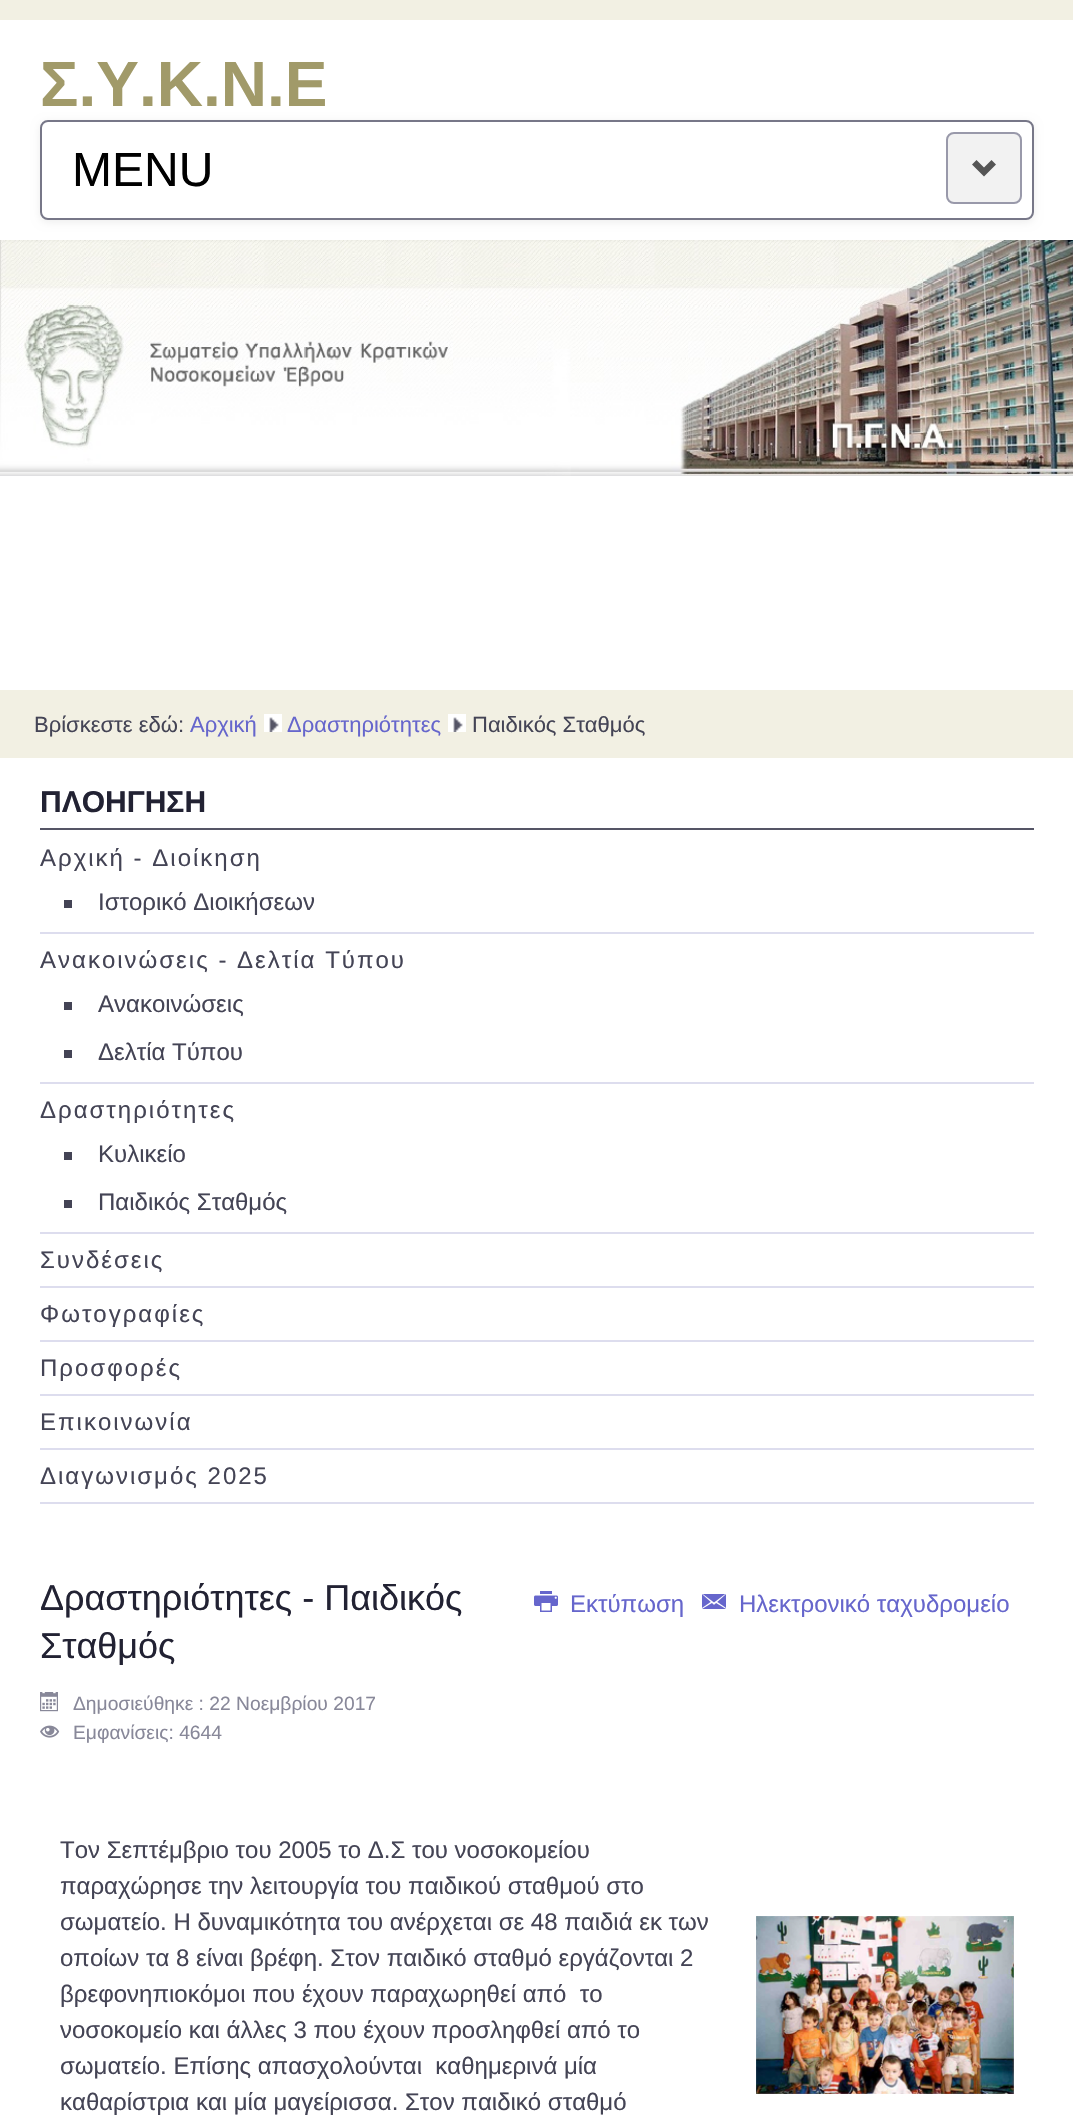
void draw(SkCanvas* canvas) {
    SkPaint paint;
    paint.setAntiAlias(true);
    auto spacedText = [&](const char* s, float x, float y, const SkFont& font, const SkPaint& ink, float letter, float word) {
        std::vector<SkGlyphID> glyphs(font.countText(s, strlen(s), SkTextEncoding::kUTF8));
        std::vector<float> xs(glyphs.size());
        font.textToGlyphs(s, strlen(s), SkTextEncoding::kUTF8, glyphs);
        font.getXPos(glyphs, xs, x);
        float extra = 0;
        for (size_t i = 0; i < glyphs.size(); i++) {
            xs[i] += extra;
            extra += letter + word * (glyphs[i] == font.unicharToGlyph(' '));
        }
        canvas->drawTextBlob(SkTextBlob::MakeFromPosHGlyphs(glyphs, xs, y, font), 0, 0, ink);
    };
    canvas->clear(0xFFF2F0E3);
    paint.setColor(0xFFFFFFFF);
    canvas->drawRect(SkRect::MakeXYWH(0, 20, 1073, 220), paint);
    SkFont font1(fontMgr->matchFamilyStyle("Liberation Sans", SkFontStyle::Bold()), 64);
    font1.setSubpixel(true);
    paint.setColor(0xFFA19A69);
    canvas->drawString("Σ.Υ.Κ.Ν.Ε", 40, 106, font1, paint);
    paint.setColor(0x12000000);
    paint.setMaskFilter(SkMaskFilter::MakeBlur(kNormal_SkBlurStyle, 4));
    canvas->drawRoundRect(SkRect::MakeXYWH(40, 122, 994, 100), 8, 8, paint);
    paint.setMaskFilter(nullptr);
    paint.setColor(0xFFFFFFFF);
    canvas->drawRoundRect(SkRect::MakeXYWH(41, 121, 992, 98), 7, 7, paint);
    paint.setStyle(SkPaint::kStroke_Style);
    paint.setStrokeWidth(2);
    paint.setColor(0xFF777788);
    canvas->drawRoundRect(SkRect::MakeXYWH(41, 121, 992, 98), 7, 7, paint);
    SkFont font2(fontMgr->matchFamilyStyle("Liberation Sans", SkFontStyle::Normal()), 48);
    font2.setSubpixel(true);
    paint.setStyle(SkPaint::kFill_Style);
    paint.setColor(0xFF000000);
    canvas->drawString("MENU", 72, 186, font2, paint);
    canvas->save();
    canvas->clipPath(SkPathBuilder().moveTo(954, 132).lineTo(1014, 132).cubicTo(1018.5f, 132, 1022, 135.5f, 1022, 140).lineTo(1022, 196).cubicTo(1022, 200.5f, 1018.5f, 204, 1014, 204).lineTo(954, 204).cubicTo(949.5f, 204, 946, 200.5f, 946, 196).lineTo(946, 140).cubicTo(946, 135.5f, 949.5f, 132, 954, 132).close().detach(), true);
    paint.setColor(0xFFF2F2F2);
    canvas->drawRect(SkRect::MakeXYWH(946, 134, 76, 68), paint);
    canvas->restore();
    paint.setStyle(SkPaint::kStroke_Style);
    paint.setColor(0xFF9999AA);
    canvas->drawRoundRect(SkRect::MakeXYWH(947, 133, 74, 70), 7, 7, paint);
    paint.setStyle(SkPaint::kFill_Style);
    paint.setColor(0xFF555555);
    canvas->drawPath(SkPathBuilder().moveTo(996, 164.5f).lineTo(984, 176.5f).lineTo(972, 164.5f).lineTo(976.5f, 160).lineTo(984, 167.5f).lineTo(991.5f, 160).close().detach(), paint);
    paint.setColor(0xFFFFFFFF);
    canvas->drawRect(SkRect::MakeXYWH(0, 476, 1073, 214), paint);
    canvas->drawImageRect(SkImages::DeferredFromEncodedData(SkData::MakeFromFileName("img1.png")), SkRect::MakeXYWH(0, 240, 1073, 236), SkSamplingOptions());
    canvas->drawRect(SkRect::MakeXYWH(0, 758, 1073, 1363), paint);
    SkFont font3(fontMgr->matchFamilyStyle("Liberation Sans", SkFontStyle::Normal()), 22);
    font3.setSubpixel(true);
    paint.setColor(0xFF444455);
    canvas->drawString("Βρίσκεστε εδώ:", 34, 732, font3, paint);
    paint.setColor(0xFF6666CC);
    canvas->drawString("Αρχική", 190, 732, font3, paint);
    canvas->drawImageRect(SkImages::DeferredFromEncodedData(SkData::MakeFromFileName("img2.png")), SkRect::MakeXYWH(264, 714, 18, 18), SkSamplingOptions());
    canvas->drawString("Δραστηριότητες", 287, 732, font3, paint);
    canvas->drawImageRect(SkImages::DeferredFromEncodedData(SkData::MakeFromFileName("img2.png")), SkRect::MakeXYWH(448, 714, 18, 18), SkSamplingOptions());
    paint.setColor(0xFF444455);
    canvas->drawString("Παιδικός Σταθμός", 472, 732, font3, paint);
    paint.setColor(0xFF555566);
    canvas->drawRect(SkRect::MakeXYWH(40, 828, 994, 2), paint);
    SkFont font4(fontMgr->matchFamilyStyle("Liberation Sans", SkFontStyle::Bold()), 30);
    font4.setSubpixel(true);
    paint.setColor(0xFF222233);
    canvas->drawString("ΠΛΟΗΓΗΣΗ", 40, 812, font4, paint);
    paint.setColor(0xFFDDDDEE);
    canvas->drawRect(SkRect::MakeXYWH(40, 932, 994, 2), paint);
    SkFont font5(fontMgr->matchFamilyStyle("Liberation Sans", SkFontStyle::Normal()), 24);
    font5.setSubpixel(true);
    paint.setColor(0xFF444455);
    spacedText("Αρχική - Διοίκηση", 40, 866, font5, paint, 2, 0);
    canvas->drawRect(SkRect::MakeXYWH(64, 900, 8, 8), paint);
    canvas->drawString("Ιστορικό Διοικήσεων", 98, 910, font5, paint);
    paint.setColor(0xFFDDDDEE);
    canvas->drawRect(SkRect::MakeXYWH(40, 1082, 994, 2), paint);
    paint.setColor(0xFF444455);
    spacedText("Ανακοινώσεις - Δελτία Τύπου", 40, 968, font5, paint, 2, 0);
    canvas->drawRect(SkRect::MakeXYWH(64, 1002, 8, 8), paint);
    canvas->drawString("Ανακοινώσεις", 98, 1012, font5, paint);
    canvas->drawRect(SkRect::MakeXYWH(64, 1050, 8, 8), paint);
    canvas->drawString("Δελτία Τύπου", 98, 1060, font5, paint);
    paint.setColor(0xFFDDDDEE);
    canvas->drawRect(SkRect::MakeXYWH(40, 1232, 994, 2), paint);
    paint.setColor(0xFF444455);
    spacedText("Δραστηριότητες", 40, 1118, font5, paint, 2, 0);
    canvas->drawRect(SkRect::MakeXYWH(64, 1152, 8, 8), paint);
    canvas->drawString("Κυλικείο", 98, 1162, font5, paint);
    canvas->drawRect(SkRect::MakeXYWH(64, 1200, 8, 8), paint);
    canvas->drawString("Παιδικός Σταθμός", 98, 1210, font5, paint);
    paint.setColor(0xFFDDDDEE);
    canvas->drawRect(SkRect::MakeXYWH(40, 1286, 994, 2), paint);
    paint.setColor(0xFF444455);
    spacedText("Συνδέσεις", 40, 1268, font5, paint, 2, 0);
    paint.setColor(0xFFDDDDEE);
    canvas->drawRect(SkRect::MakeXYWH(40, 1340, 994, 2), paint);
    paint.setColor(0xFF444455);
    spacedText("Φωτογραφίες", 40, 1322, font5, paint, 2, 0);
    paint.setColor(0xFFDDDDEE);
    canvas->drawRect(SkRect::MakeXYWH(40, 1394, 994, 2), paint);
    paint.setColor(0xFF444455);
    spacedText("Προσφορές", 40, 1376, font5, paint, 2, 0);
    paint.setColor(0xFFDDDDEE);
    canvas->drawRect(SkRect::MakeXYWH(40, 1448, 994, 2), paint);
    paint.setColor(0xFF444455);
    spacedText("Επικοινωνία", 40, 1430, font5, paint, 2, 0);
    paint.setColor(0xFFDDDDEE);
    canvas->drawRect(SkRect::MakeXYWH(40, 1502, 994, 2), paint);
    paint.setColor(0xFF444455);
    spacedText("Διαγωνισμός 2025", 40, 1484, font5, paint, 2, 0);
    SkFont font6(fontMgr->matchFamilyStyle("Liberation Sans", SkFontStyle::Normal()), 36);
    font6.setSubpixel(true);
    paint.setColor(0xFF222233);
    canvas->drawString("Δραστηριότητες - Παιδικός", 40, 1610, font6, paint);
    canvas->drawString("Σταθμός", 40, 1658, font6, paint);
    canvas->drawImageRect(SkImages::DeferredFromEncodedData(SkData::MakeFromFileName("img3.png")), SkRect::MakeXYWH(534, 1591, 24, 21), SkSamplingOptions());
    paint.setColor(0xFF6666CC);
    canvas->drawString("Εκτύπωση", 570, 1612, font5, paint);
    canvas->drawImageRect(SkImages::DeferredFromEncodedData(SkData::MakeFromFileName("img4.png")), SkRect::MakeXYWH(702, 1594, 24, 15), SkSamplingOptions());
    canvas->drawString("Ηλεκτρονικό ταχυδρομείο", 739, 1612, font5, paint);
    canvas->drawImageRect(SkImages::DeferredFromEncodedData(SkData::MakeFromFileName("img5.png")), SkRect::MakeXYWH(40, 1692, 18, 20), SkSamplingOptions());
    SkFont font7(fontMgr->matchFamilyStyle("Liberation Sans", SkFontStyle::Normal()), 19.25f);
    font7.setSubpixel(true);
    paint.setColor(0xFF888899);
    canvas->drawString("Δημοσιεύθηκε : 22 Νοεμβρίου 2017", 73, 1710, font7, paint);
    canvas->drawImageRect(SkImages::DeferredFromEncodedData(SkData::MakeFromFileName("img6.png")), SkRect::MakeXYWH(40, 1725, 20, 13), SkSamplingOptions());
    canvas->drawString("Εμφανίσεις: 4644", 73, 1739, font7, paint);
    paint.setColor(0xFF444455);
    canvas->drawString("Τον Σεπτέμβριο του 2005 το Δ.Σ του νοσοκομείου", 60, 1858, font5, paint);
    canvas->drawString("παραχώρησε την λειτουργία του παιδικού σταθμού στο", 60, 1894, font5, paint);
    canvas->drawString("σωματείο. Η δυναμικότητα του ανέρχεται σε 48 παιδιά εκ των", 60, 1930, font5, paint);
    canvas->drawString("οποίων τα 8 είναι βρέφη. Στον παιδικό σταθμό εργάζονται 2", 60, 1966, font5, paint);
    canvas->drawString("βρεφονηπιοκόμοι που έχουν παραχωρηθεί από  το", 60, 2002, font5, paint);
    canvas->drawString("νοσοκομείο και άλλες 3 που έχουν προσληφθεί από το", 60, 2038, font5, paint);
    canvas->drawString("σωματείο. Επίσης απασχολούνται  καθημερινά μία", 60, 2074, font5, paint);
    canvas->drawString("καθαρίστρια και μία μαγείρισσα. Στον παιδικό σταθμό", 60, 2110, font5, paint);
    canvas->drawImageRect(SkImages::DeferredFromEncodedData(SkData::MakeFromFileName("img7.png")), SkRect::MakeXYWH(756, 1916, 258, 178), SkSamplingOptions());
}
